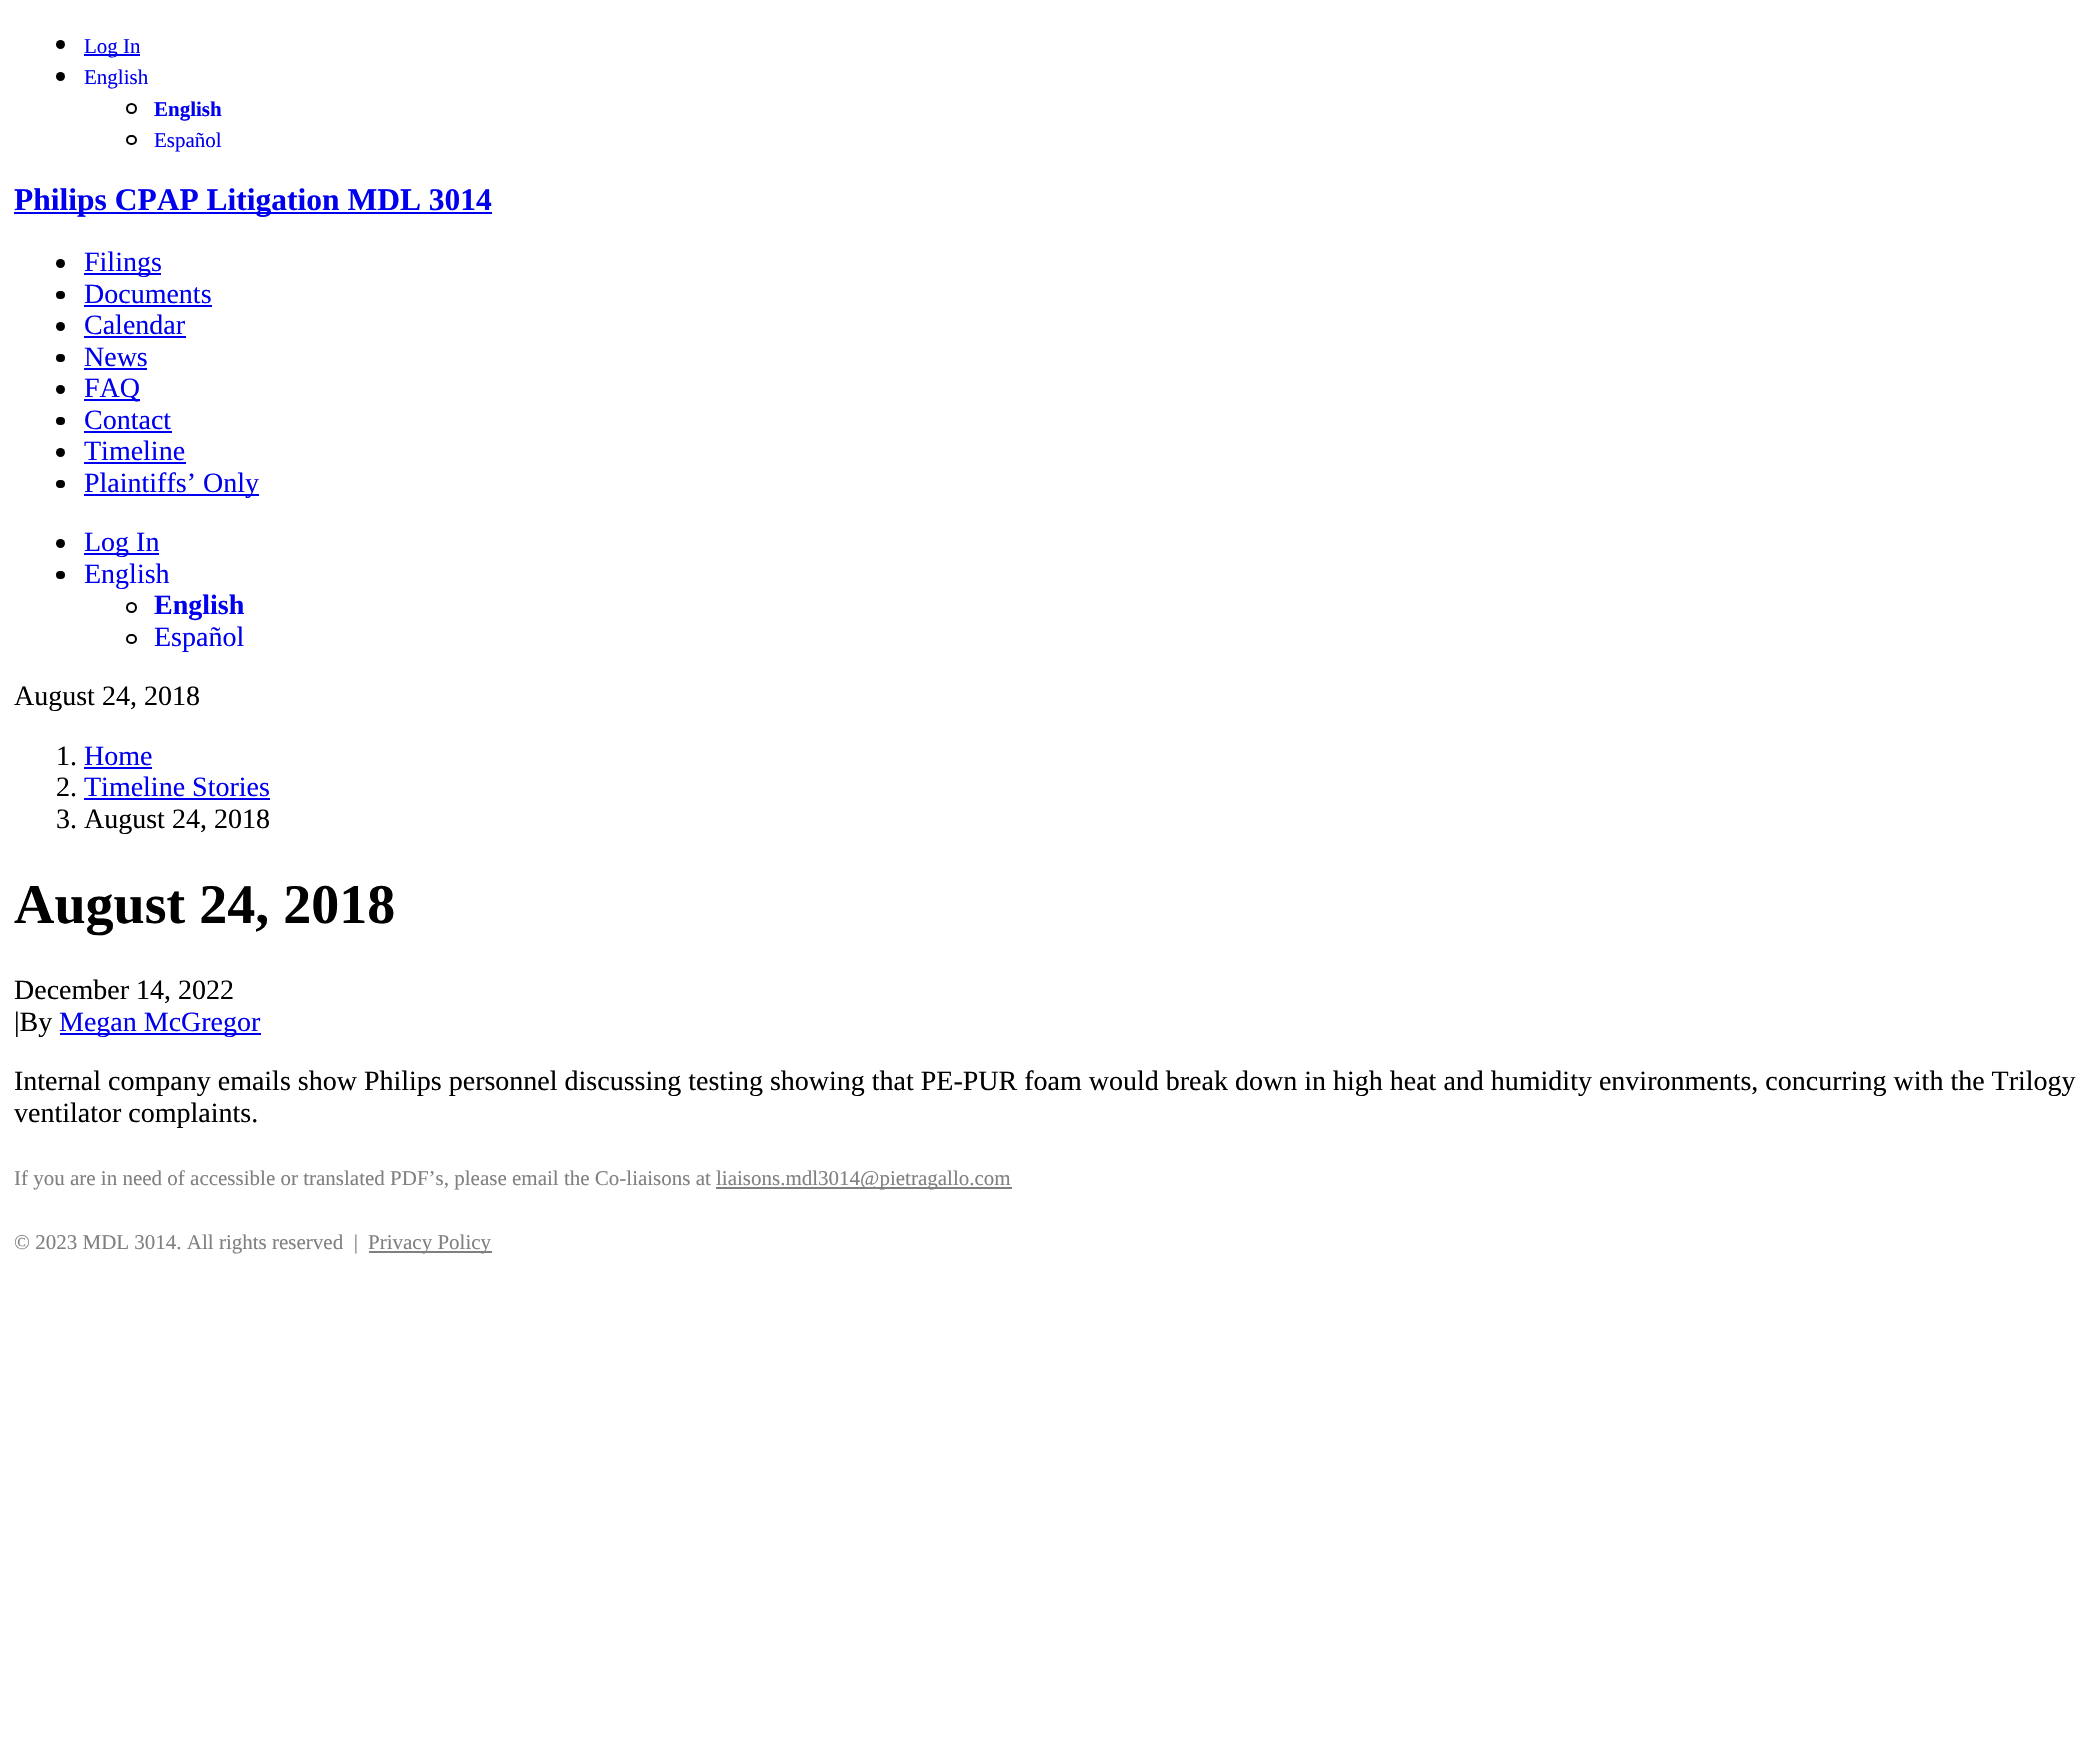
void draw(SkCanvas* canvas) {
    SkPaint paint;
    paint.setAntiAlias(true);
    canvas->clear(0xFFFFFFFF);
    paint.setColor(0xFF000000);
    canvas->drawCircle(60.5f, 44.5f, 4.5f, paint);
    paint.setColor(0xFF0000EE);
    canvas->drawRect(SkRect::MakeXYWH(84, 54, 56, 2), paint);
    SkFont font1(fontMgr->matchFamilyStyle("Liberation Serif", SkFontStyle::Normal()), 21);
    font1.setSubpixel(true);
    canvas->drawString("Log In", 84, 53, font1, paint);
    paint.setColor(0xFF000000);
    canvas->drawCircle(60.5f, 76.5f, 4.5f, paint);
    paint.setColor(0xFF0000EE);
    canvas->drawString("English", 84, 84, font1, paint);
    paint.setStyle(SkPaint::kStroke_Style);
    paint.setStrokeWidth(2);
    paint.setColor(0xFF000000);
    canvas->drawCircle(131.5f, 108.5f, 4.5f, paint);
    SkFont font2(fontMgr->matchFamilyStyle("Liberation Serif", SkFontStyle::Bold()), 21);
    font2.setSubpixel(true);
    paint.setStyle(SkPaint::kFill_Style);
    paint.setColor(0xFF0000EE);
    canvas->drawString("English", 154, 116, font2, paint);
    paint.setStyle(SkPaint::kStroke_Style);
    paint.setColor(0xFF000000);
    canvas->drawRoundRect(SkRect::MakeXYWH(127, 136, 9, 8), 4, 4, paint);
    paint.setStyle(SkPaint::kFill_Style);
    paint.setColor(0xFF0000EE);
    canvas->drawString("Español", 154, 147, font1, paint);
    canvas->drawRect(SkRect::MakeXYWH(14, 212, 478, 2), paint);
    SkFont font3(fontMgr->matchFamilyStyle("Liberation Serif", SkFontStyle::Bold()), 31.5f);
    font3.setSubpixel(true);
    canvas->drawString("Philips CPAP Litigation MDL 3014", 14, 210, font3, paint);
    paint.setColor(0xFF000000);
    canvas->drawCircle(60.5f, 263.5f, 4.5f, paint);
    paint.setColor(0xFF0000EE);
    canvas->drawRect(SkRect::MakeXYWH(84, 273, 77, 2), paint);
    SkFont font4(fontMgr->matchFamilyStyle("Liberation Serif", SkFontStyle::Normal()), 28);
    font4.setSubpixel(true);
    canvas->drawString("Filings", 84, 271, font4, paint);
    paint.setColor(0xFF000000);
    canvas->drawRoundRect(SkRect::MakeXYWH(56, 291, 9, 8), 4, 4, paint);
    paint.setColor(0xFF0000EE);
    canvas->drawString("Documents", 84, 303, font4, paint);
    canvas->drawRect(SkRect::MakeXYWH(84, 305, 128, 2), paint);
    paint.setColor(0xFF000000);
    canvas->drawCircle(60.5f, 326.5f, 4.5f, paint);
    paint.setColor(0xFF0000EE);
    canvas->drawString("Calendar", 84, 334, font4, paint);
    canvas->drawRect(SkRect::MakeXYWH(84, 336, 102, 2), paint);
    paint.setColor(0xFF000000);
    canvas->drawRoundRect(SkRect::MakeXYWH(56, 354, 9, 8), 4, 4, paint);
    paint.setColor(0xFF0000EE);
    canvas->drawString("News", 84, 366, font4, paint);
    canvas->drawRect(SkRect::MakeXYWH(84, 368, 63, 2), paint);
    paint.setColor(0xFF000000);
    canvas->drawCircle(60.5f, 389.5f, 4.5f, paint);
    paint.setColor(0xFF0000EE);
    canvas->drawRect(SkRect::MakeXYWH(84, 399, 56, 2), paint);
    canvas->drawString("FAQ", 84, 397, font4, paint);
    paint.setColor(0xFF000000);
    canvas->drawRoundRect(SkRect::MakeXYWH(56, 417, 9, 8), 4, 4, paint);
    paint.setColor(0xFF0000EE);
    canvas->drawString("Contact", 84, 429, font4, paint);
    canvas->drawRect(SkRect::MakeXYWH(84, 431, 88, 2), paint);
    paint.setColor(0xFF000000);
    canvas->drawCircle(60.5f, 452.5f, 4.5f, paint);
    paint.setColor(0xFF0000EE);
    canvas->drawString("Timeline", 84, 460, font4, paint);
    canvas->drawRect(SkRect::MakeXYWH(84, 462, 102, 2), paint);
    paint.setColor(0xFF000000);
    canvas->drawRoundRect(SkRect::MakeXYWH(56, 480, 9, 8), 4, 4, paint);
    paint.setColor(0xFF0000EE);
    canvas->drawRect(SkRect::MakeXYWH(84, 494, 175, 2), paint);
    canvas->drawString("Plaintiffs’ Only", 84, 492, font4, paint);
    paint.setColor(0xFF000000);
    canvas->drawCircle(60.5f, 543.5f, 4.5f, paint);
    paint.setColor(0xFF0000EE);
    canvas->drawRect(SkRect::MakeXYWH(84, 553, 75, 2), paint);
    canvas->drawString("Log In", 84, 551, font4, paint);
    paint.setColor(0xFF000000);
    canvas->drawRoundRect(SkRect::MakeXYWH(56, 571, 9, 8), 4, 4, paint);
    paint.setColor(0xFF0000EE);
    canvas->drawString("English", 84, 583, font4, paint);
    paint.setStyle(SkPaint::kStroke_Style);
    paint.setColor(0xFF000000);
    canvas->drawCircle(131.5f, 607.5f, 4.5f, paint);
    SkFont font5(fontMgr->matchFamilyStyle("Liberation Serif", SkFontStyle::Bold()), 28);
    font5.setSubpixel(true);
    paint.setStyle(SkPaint::kFill_Style);
    paint.setColor(0xFF0000EE);
    canvas->drawString("English", 154, 614, font5, paint);
    paint.setStyle(SkPaint::kStroke_Style);
    paint.setColor(0xFF000000);
    canvas->drawRoundRect(SkRect::MakeXYWH(127, 635, 9, 8), 4, 4, paint);
    paint.setStyle(SkPaint::kFill_Style);
    paint.setColor(0xFF0000EE);
    canvas->drawString("Español", 154, 646, font4, paint);
    paint.setColor(0xFF000000);
    canvas->drawString("August 24, 2018", 14, 705, font4, paint);
    canvas->drawString("1.", 56, 765, font4, paint);
    paint.setColor(0xFF0000EE);
    canvas->drawString("Home", 84, 765, font4, paint);
    canvas->drawRect(SkRect::MakeXYWH(84, 767, 68, 2), paint);
    paint.setColor(0xFF000000);
    canvas->drawString("2.", 56, 796, font4, paint);
    paint.setColor(0xFF0000EE);
    canvas->drawString("Timeline Stories", 84, 796, font4, paint);
    canvas->drawRect(SkRect::MakeXYWH(84, 798, 186, 2), paint);
    paint.setColor(0xFF000000);
    canvas->drawString("3. August 24, 2018", 56, 828, font4, paint);
    SkFont font6(fontMgr->matchFamilyStyle("Liberation Serif", SkFontStyle::Bold()), 56);
    font6.setSubpixel(true);
    canvas->drawString("August 24, 2018", 14, 923, font6, paint);
    canvas->drawString("December 14, 2022", 14, 999, font4, paint);
    canvas->drawString("|By", 14, 1031, font4, paint);
    paint.setColor(0xFF0000EE);
    canvas->drawRect(SkRect::MakeXYWH(60, 1033, 201, 2), paint);
    canvas->drawString("Megan McGregor", 59, 1031, font4, paint);
    paint.setColor(0xFF000000);
    canvas->drawString("Internal company emails show Philips personnel discussing testing showing that PE-PUR foam would break down in high heat and humidity environments, concurring with the Trilogy", 14, 1090, font4, paint);
    canvas->drawString("ventilator complaints.", 14, 1122, font4, paint);
    paint.setColor(0xFF808080);
    canvas->drawString("If you are in need of accessible or translated PDF’s, please email the Co-liaisons at", 14, 1185, font1, paint);
    canvas->drawRect(SkRect::MakeXYWH(716, 1187, 296, 2), paint);
    canvas->drawString("liaisons.mdl3014@pietragallo.com", 716, 1185, font1, paint);
    canvas->drawString("© 2023 MDL 3014. All rights reserved  |", 14, 1249, font1, paint);
    canvas->drawRect(SkRect::MakeXYWH(369, 1251, 123, 2), paint);
    canvas->drawString("Privacy Policy", 368, 1249, font1, paint);
}
